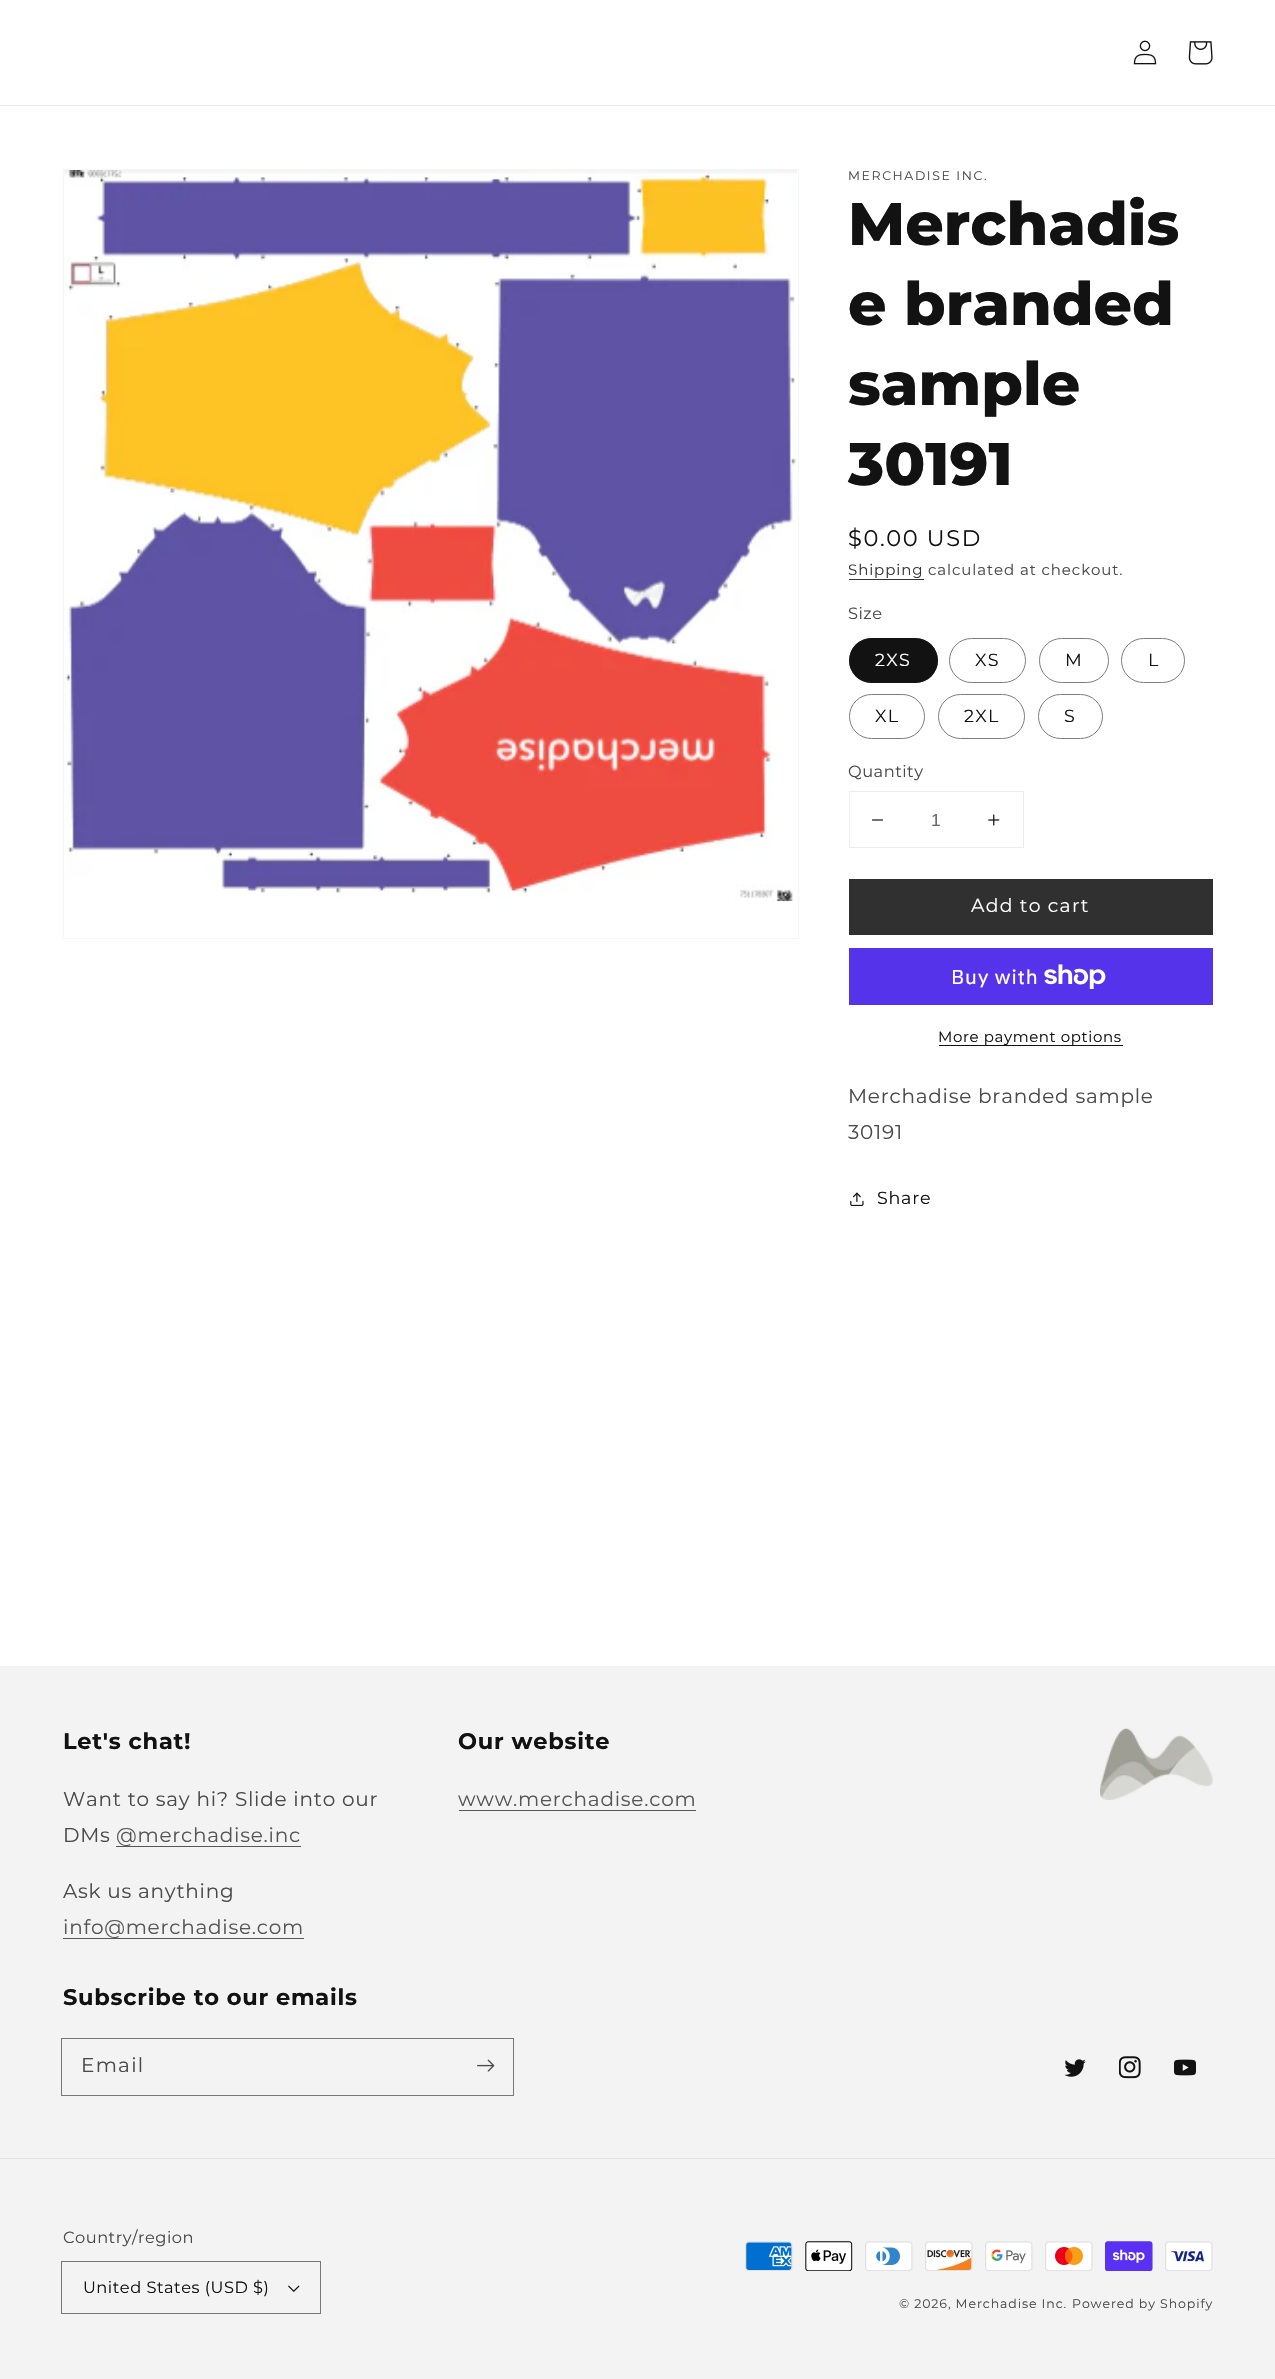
void draw(SkCanvas* canvas) {
    SkPaint paint;
    paint.setAntiAlias(true);
    auto spacedText = [&](const char* s, float x, float y, const SkFont& font, const SkPaint& ink, float letter, float word) {
        std::vector<SkGlyphID> glyphs(font.countText(s, strlen(s), SkTextEncoding::kUTF8));
        std::vector<float> xs(glyphs.size());
        font.textToGlyphs(s, strlen(s), SkTextEncoding::kUTF8, glyphs);
        font.getXPos(glyphs, xs, x);
        float extra = 0;
        for (size_t i = 0; i < glyphs.size(); i++) {
            xs[i] += extra;
            extra += letter + word * (glyphs[i] == font.unicharToGlyph(' '));
        }
        canvas->drawTextBlob(SkTextBlob::MakeFromPosHGlyphs(glyphs, xs, y, font), 0, 0, ink);
    };
    canvas->clear(0xFFFFFFFF);
    paint.setColor(0xFFECECEC);
    canvas->drawRect(SkRect::MakeXYWH(0, 105, 1275, 1), paint);
    canvas->drawImageRect(SkImages::DeferredFromEncodedData(SkData::MakeFromFileName("img1.png")), SkRect::MakeXYWH(1133, 40, 24, 25), SkSamplingOptions());
    canvas->drawImageRect(SkImages::DeferredFromEncodedData(SkData::MakeFromFileName("img2.png")), SkRect::MakeXYWH(1188, 41, 25, 24), SkSamplingOptions());
    paint.setStyle(SkPaint::kStroke_Style);
    paint.setStrokeWidth(1);
    paint.setColor(0xFFF6F6F6);
    canvas->drawRect(SkRect::MakeXYWH(63.5f, 169.5f, 735, 769), paint);
    canvas->drawImageRect(SkImages::DeferredFromEncodedData(SkData::MakeFromFileName("img3.png")), SkRect::MakeXYWH(64, 170, 733, 732), SkSamplingOptions());
    SkFont font1(fontMgr->matchFamilyStyle("Montserrat", SkFontStyle::Normal()), 12.5f);
    font1.setSubpixel(true);
    paint.setStyle(SkPaint::kFill_Style);
    paint.setColor(0xFF4A4A4A);
    spacedText("MERCHADISE INC.", 848, 180, font1, paint, 1.6f, 0);
    SkFont font2(fontMgr->matchFamilyStyle("Montserrat", SkFontStyle(100, SkFontStyle::kNormal_Width, SkFontStyle::kUpright_Slant)), 60);
    font2.setSubpixel(true);
    paint.setColor(0xFF121212);
    canvas->drawString("Merchadis", 848, 245, font2, paint);
    canvas->drawString("e branded", 848, 325, font2, paint);
    canvas->drawString("sample", 848, 405, font2, paint);
    canvas->drawString("30191", 848, 485, font2, paint);
    SkFont font3(fontMgr->matchFamilyStyle("Montserrat", SkFontStyle::Normal()), 22.5f);
    font3.setSubpixel(true);
    spacedText("$0.00 USD", 848, 546, font3, paint, 1.6f, 0);
    SkFont font4(fontMgr->matchFamilyStyle("Montserrat", SkFontStyle::Normal()), 15);
    font4.setSubpixel(true);
    paint.setColor(0xFF363636);
    spacedText("Shipping", 848, 575, font4, paint, 0.9f, 0);
    canvas->drawRect(SkRect::MakeXYWH(849, 579, 75, 1), paint);
    paint.setColor(0xFF4A4A4A);
    spacedText("calculated at checkout.", 928, 575, font4, paint, 0.9f, 0);
    SkFont font5(fontMgr->matchFamilyStyle("Montserrat", SkFontStyle::Normal()), 16.25f);
    font5.setSubpixel(true);
    spacedText("Size", 848, 619, font5, paint, 0.5f, 0);
    paint.setColor(0xFF121212);
    canvas->drawRoundRect(SkRect::MakeXYWH(849, 638, 89, 45), 22.5f, 22.5f, paint);
    paint.setStyle(SkPaint::kStroke_Style);
    paint.setColor(0x8C121212);
    canvas->drawRoundRect(SkRect::MakeXYWH(849.5f, 638.5f, 88, 44), 22, 22, paint);
    SkFont font6(fontMgr->matchFamilyStyle("Montserrat", SkFontStyle::Normal()), 17.5f);
    font6.setSubpixel(true);
    paint.setStyle(SkPaint::kFill_Style);
    paint.setColor(0xFFFFFFFF);
    spacedText("2XS", 875, 666, font6, paint, 1.25f, 0);
    paint.setStyle(SkPaint::kStroke_Style);
    paint.setColor(0xFF7D7D7D);
    canvas->drawRoundRect(SkRect::MakeXYWH(949.5f, 638.5f, 76, 44), 22, 22, paint);
    paint.setStyle(SkPaint::kFill_Style);
    paint.setColor(0xFF121212);
    spacedText("XS", 975, 666, font6, paint, 1.25f, 0);
    paint.setStyle(SkPaint::kStroke_Style);
    paint.setColor(0xFF7D7D7D);
    canvas->drawRoundRect(SkRect::MakeXYWH(1039.5f, 638.5f, 69, 44), 22, 22, paint);
    paint.setStyle(SkPaint::kFill_Style);
    paint.setColor(0xFF121212);
    spacedText("M", 1065, 666, font6, paint, 1.25f, 0);
    paint.setStyle(SkPaint::kStroke_Style);
    paint.setColor(0xFF7D7D7D);
    canvas->drawRoundRect(SkRect::MakeXYWH(1121.5f, 638.5f, 63, 44), 22, 22, paint);
    paint.setStyle(SkPaint::kFill_Style);
    paint.setColor(0xFF121212);
    spacedText("L", 1148, 666, font6, paint, 1.25f, 0);
    paint.setStyle(SkPaint::kStroke_Style);
    paint.setColor(0xFF7D7D7D);
    canvas->drawRoundRect(SkRect::MakeXYWH(849.5f, 694.5f, 75, 44), 22, 22, paint);
    paint.setStyle(SkPaint::kFill_Style);
    paint.setColor(0xFF121212);
    spacedText("XL", 875, 722, font6, paint, 1.25f, 0);
    paint.setStyle(SkPaint::kStroke_Style);
    paint.setColor(0xFF7D7D7D);
    canvas->drawRoundRect(SkRect::MakeXYWH(938.5f, 694.5f, 86, 44), 22, 22, paint);
    paint.setStyle(SkPaint::kFill_Style);
    paint.setColor(0xFF121212);
    spacedText("2XL", 964, 722, font6, paint, 1.25f, 0);
    paint.setStyle(SkPaint::kStroke_Style);
    paint.setColor(0xFF7D7D7D);
    canvas->drawRoundRect(SkRect::MakeXYWH(1038.5f, 694.5f, 64, 44), 22, 22, paint);
    paint.setStyle(SkPaint::kFill_Style);
    paint.setColor(0xFF121212);
    spacedText("S", 1064, 722, font6, paint, 1.25f, 0);
    paint.setColor(0xFF4A4A4A);
    spacedText("Quantity", 848, 777, font5, paint, 0.5f, 0);
    paint.setStyle(SkPaint::kStroke_Style);
    paint.setColor(0xFFECECEC);
    canvas->drawRect(SkRect::MakeXYWH(849.5f, 791.5f, 174, 56), paint);
    canvas->drawImageRect(SkImages::DeferredFromEncodedData(SkData::MakeFromFileName("img4.png")), SkRect::MakeXYWH(872, 819, 11, 2), SkSamplingOptions());
    SkFont font7(fontMgr->matchFamilyStyle("Liberation Sans", SkFontStyle::Normal()), 17.5f);
    font7.setSubpixel(true);
    paint.setStyle(SkPaint::kFill_Style);
    paint.setColor(0xFF686868);
    canvas->drawString("1", 931, 826, font7, paint);
    canvas->drawImageRect(SkImages::DeferredFromEncodedData(SkData::MakeFromFileName("img5.png")), SkRect::MakeXYWH(988, 814, 12, 12), SkSamplingOptions());
    paint.setColor(0xFF303030);
    canvas->drawRect(SkRect::MakeXYWH(849, 879, 364, 56), paint);
    SkFont font8(fontMgr->matchFamilyStyle("Montserrat", SkFontStyle::Normal()), 18.75f);
    font8.setSubpixel(true);
    paint.setColor(0xFFFFFFFF);
    spacedText("Add to cart", 971, 912, font8, paint, 1.25f, 0);
    paint.setColor(0xFF5433EB);
    canvas->drawRect(SkRect::MakeXYWH(849, 948, 364, 57), paint);
    SkFont font9(fontMgr->matchFamilyStyle("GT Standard", SkFontStyle::Normal()), 20);
    font9.setSubpixel(true);
    paint.setColor(0xFFFFFFFF);
    spacedText("Buy with", 951, 984, font9, paint, 0.75f, 0);
    canvas->drawImageRect(SkImages::DeferredFromEncodedData(SkData::MakeFromFileName("img6.png")), SkRect::MakeXYWH(1044, 964, 62, 25), SkSamplingOptions());
    paint.setColor(0xFF121212);
    spacedText("More payment options", 938, 1042, font4, paint, 0.6f, 0);
    canvas->drawRect(SkRect::MakeXYWH(939, 1045, 184, 1), paint);
    SkFont font10(fontMgr->matchFamilyStyle("Montserrat", SkFontStyle::Normal()), 20);
    font10.setSubpixel(true);
    paint.setColor(0xFF4A4A4A);
    spacedText("Merchadise branded sample", 848, 1103, font10, paint, 0.75f, 0);
    spacedText("30191", 848, 1139, font10, paint, 0.75f, 0);
    canvas->drawImageRect(SkImages::DeferredFromEncodedData(SkData::MakeFromFileName("img7.png")), SkRect::MakeXYWH(850, 1192, 14, 14), SkSamplingOptions());
    paint.setColor(0xFF121212);
    spacedText("Share", 877, 1204, font6, paint, 0.75f, 0);
    paint.setColor(0xFFF3F3F3);
    canvas->drawRect(SkRect::MakeXYWH(0, 1666, 1275, 713), paint);
    SkFont font11(fontMgr->matchFamilyStyle("Montserrat", SkFontStyle::Bold()), 22.5f);
    font11.setSubpixel(true);
    paint.setColor(0xFF121212);
    spacedText("Let's chat!", 63, 1749, font11, paint, 0.75f, 0);
    paint.setColor(0xFF4A4A4A);
    spacedText("Want to say hi? Slide into our", 63, 1806, font10, paint, 0.75f, 0);
    spacedText("DMs", 63, 1842, font10, paint, 0.75f, 0);
    paint.setColor(0xFF565656);
    spacedText("@merchadise.inc", 116, 1842, font10, paint, 0.75f, 0);
    canvas->drawRect(SkRect::MakeXYWH(116, 1846, 185, 1), paint);
    paint.setColor(0xFF4A4A4A);
    spacedText("Ask us anything", 63, 1898, font10, paint, 0.75f, 0);
    paint.setColor(0xFF565656);
    spacedText("info@merchadise.com", 63, 1934, font10, paint, 0.75f, 0);
    canvas->drawRect(SkRect::MakeXYWH(63, 1938, 241, 1), paint);
    paint.setColor(0xFF121212);
    spacedText("Our website", 458, 1749, font11, paint, 0.75f, 0);
    paint.setColor(0xFF565656);
    spacedText("www.merchadise.com", 458, 1806, font10, paint, 0.75f, 0);
    canvas->drawRect(SkRect::MakeXYWH(459, 1810, 237, 1), paint);
    canvas->drawImageRect(SkImages::DeferredFromEncodedData(SkData::MakeFromFileName("img8.png")), SkRect::MakeXYWH(1100, 1728, 113, 72), SkSamplingOptions());
    paint.setColor(0xFF121212);
    spacedText("Subscribe to our emails", 63, 2005, font11, paint, 0.75f, 0);
    paint.setStyle(SkPaint::kStroke_Style);
    paint.setColor(0xFF777777);
    canvas->drawRect(SkRect::MakeXYWH(61.5f, 2038.5f, 452, 57), paint);
    paint.setStyle(SkPaint::kFill_Style);
    paint.setColor(0xFF4A4A4A);
    spacedText("Email", 81, 2072, font10, paint, 1.25f, 0);
    canvas->drawImageRect(SkImages::DeferredFromEncodedData(SkData::MakeFromFileName("img9.png")), SkRect::MakeXYWH(477, 2059, 18, 13), SkSamplingOptions());
    canvas->drawImageRect(SkImages::DeferredFromEncodedData(SkData::MakeFromFileName("img10.png")), SkRect::MakeXYWH(1064, 2059, 22, 18), SkSamplingOptions());
    canvas->drawImageRect(SkImages::DeferredFromEncodedData(SkData::MakeFromFileName("img11.png")), SkRect::MakeXYWH(1119, 2056, 22, 23), SkSamplingOptions());
    canvas->drawImageRect(SkImages::DeferredFromEncodedData(SkData::MakeFromFileName("img12.png")), SkRect::MakeXYWH(1174, 2059, 22, 17), SkSamplingOptions());
    paint.setColor(0xFFE1E1E1);
    canvas->drawRect(SkRect::MakeXYWH(0, 2158, 1275, 1), paint);
    paint.setColor(0xFF4A4A4A);
    spacedText("Country/region", 63, 2243, font5, paint, 0.5f, 0);
    paint.setStyle(SkPaint::kStroke_Style);
    paint.setColor(0xFF777777);
    canvas->drawRect(SkRect::MakeXYWH(61.5f, 2261.5f, 259, 52), paint);
    paint.setStyle(SkPaint::kFill_Style);
    paint.setColor(0xFF121212);
    spacedText("United States (USD $)", 83, 2293, font5, paint, 0.5f, 0);
    canvas->drawImageRect(SkImages::DeferredFromEncodedData(SkData::MakeFromFileName("img13.png")), SkRect::MakeXYWH(288, 2285, 12, 7), SkSamplingOptions());
    canvas->drawImageRect(SkImages::DeferredFromEncodedData(SkData::MakeFromFileName("img14.png")), SkRect::MakeXYWH(745, 2241, 48, 30), SkSamplingOptions());
    canvas->drawImageRect(SkImages::DeferredFromEncodedData(SkData::MakeFromFileName("img15.png")), SkRect::MakeXYWH(805, 2241, 48, 30), SkSamplingOptions());
    canvas->drawImageRect(SkImages::DeferredFromEncodedData(SkData::MakeFromFileName("img16.png")), SkRect::MakeXYWH(865, 2241, 48, 30), SkSamplingOptions());
    canvas->drawImageRect(SkImages::DeferredFromEncodedData(SkData::MakeFromFileName("img17.png")), SkRect::MakeXYWH(925, 2241, 48, 30), SkSamplingOptions());
    canvas->drawImageRect(SkImages::DeferredFromEncodedData(SkData::MakeFromFileName("img18.png")), SkRect::MakeXYWH(985, 2241, 48, 30), SkSamplingOptions());
    canvas->drawImageRect(SkImages::DeferredFromEncodedData(SkData::MakeFromFileName("img19.png")), SkRect::MakeXYWH(1045, 2241, 48, 30), SkSamplingOptions());
    canvas->drawImageRect(SkImages::DeferredFromEncodedData(SkData::MakeFromFileName("img20.png")), SkRect::MakeXYWH(1105, 2241, 48, 30), SkSamplingOptions());
    canvas->drawImageRect(SkImages::DeferredFromEncodedData(SkData::MakeFromFileName("img21.png")), SkRect::MakeXYWH(1165, 2241, 48, 30), SkSamplingOptions());
    paint.setColor(0xFF4A4A4A);
    spacedText("© 2026, Merchadise Inc.", 899, 2308, font1, paint, 0.9f, 0);
    spacedText("Powered by Shopify", 1072, 2308, font1, paint, 0.9f, 0);
}
